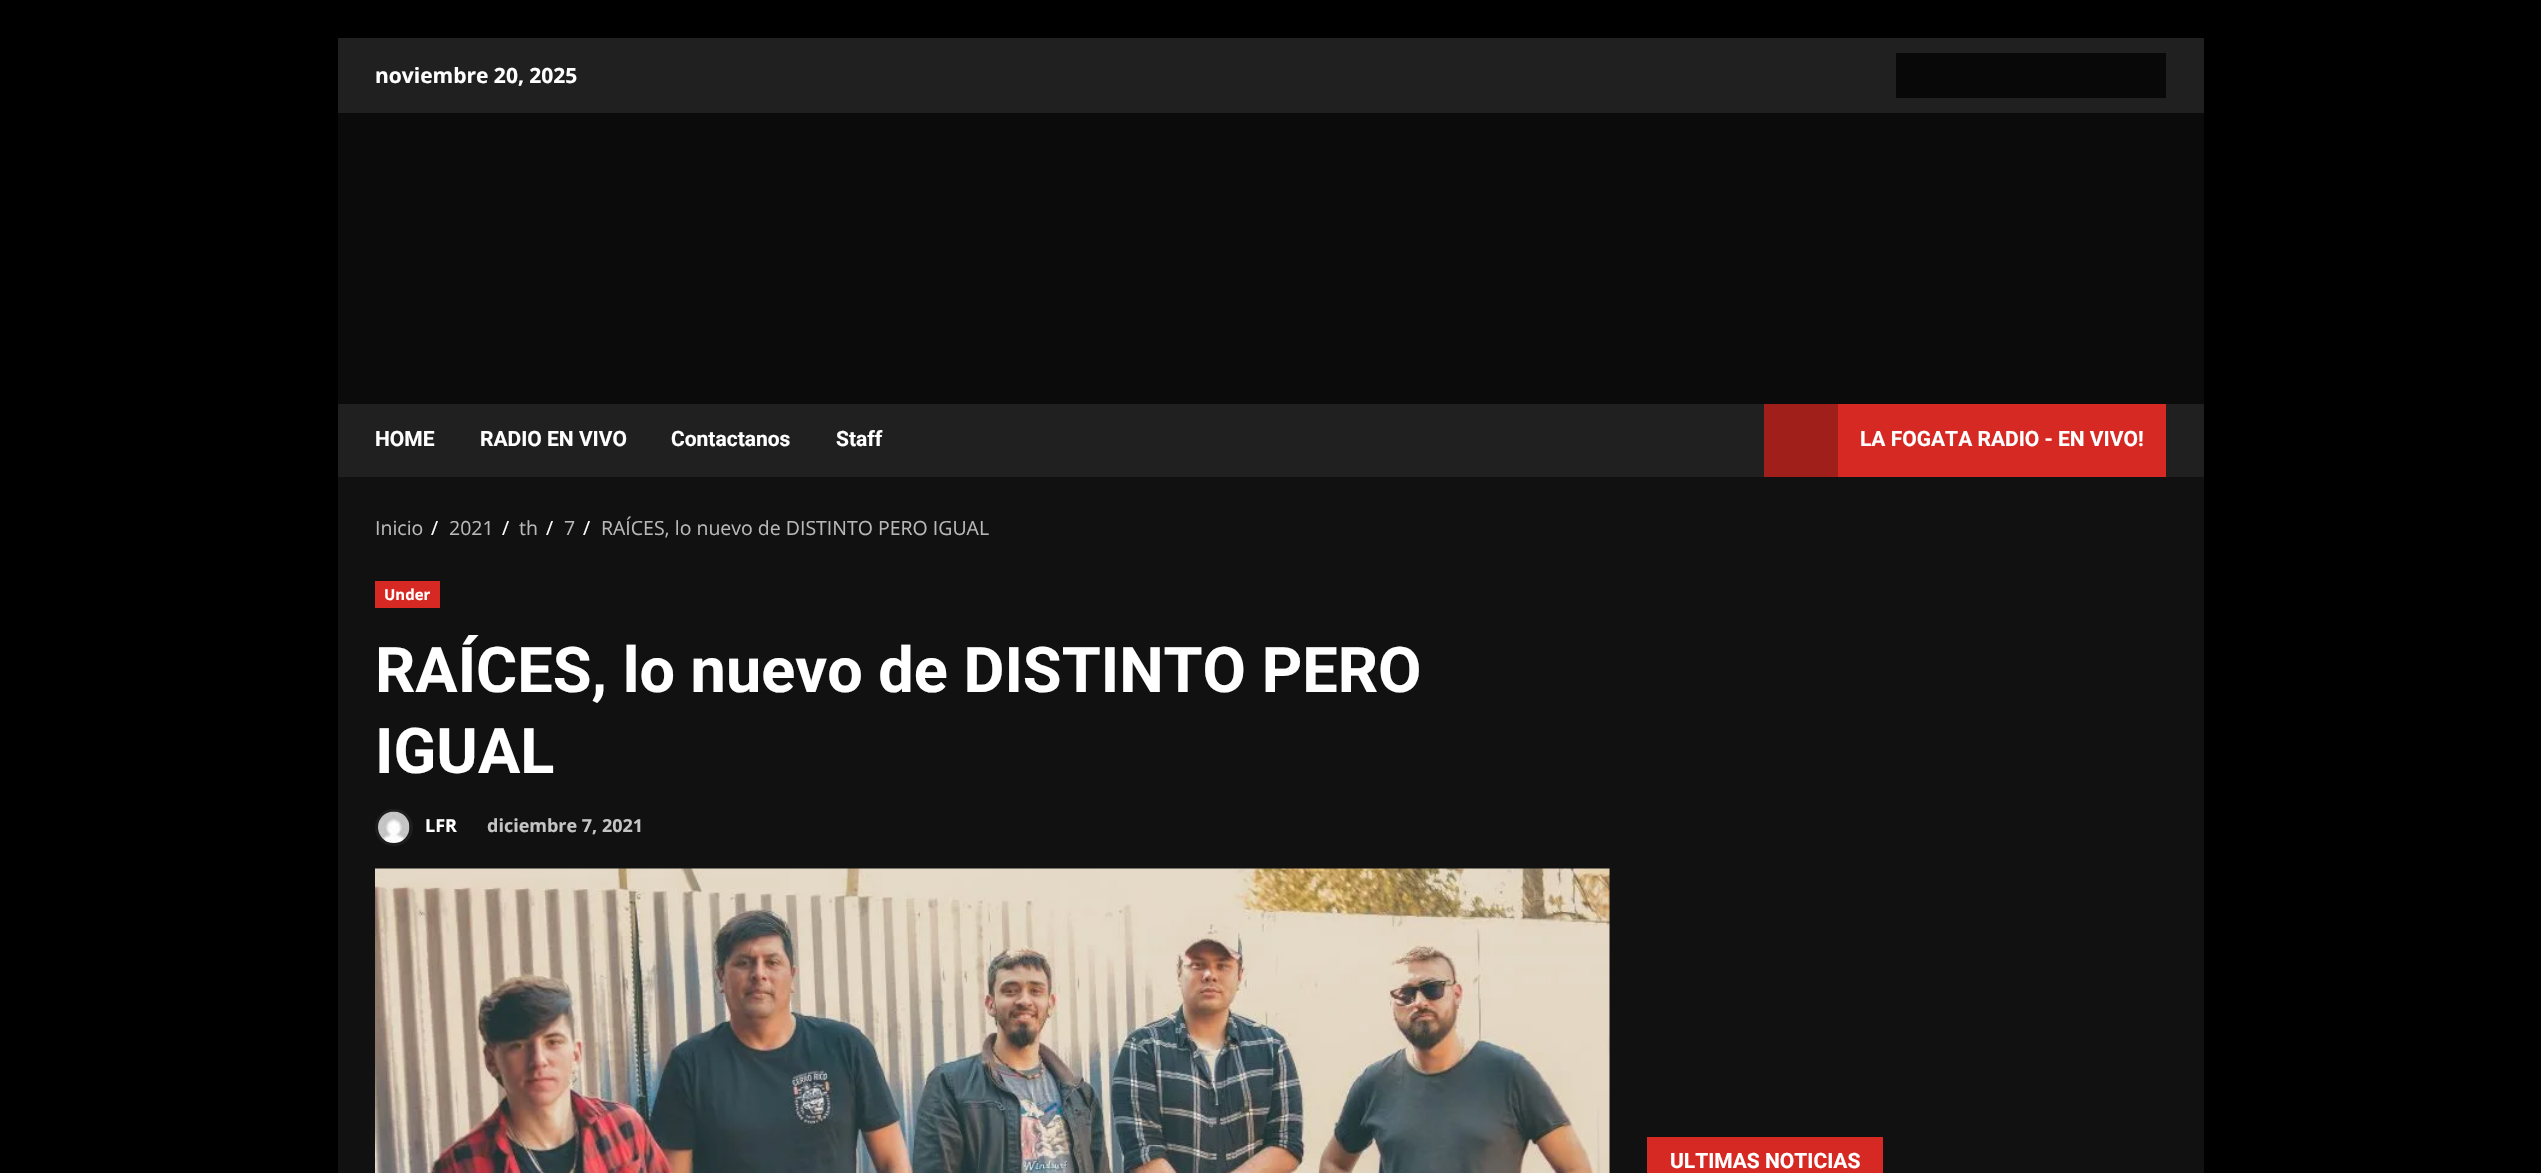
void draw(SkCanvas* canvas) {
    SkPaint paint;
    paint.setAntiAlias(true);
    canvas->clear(0xFF000000);
    paint.setColor(0xFF111111);
    canvas->drawRect(SkRect::MakeXYWH(338, 477, 1866, 696), paint);
    paint.setColor(0xFF202020);
    canvas->drawRect(SkRect::MakeXYWH(338, 38, 1866, 75), paint);
    SkFont font1(fontMgr->matchFamilyStyle("Open Sans", SkFontStyle::Bold()), 21);
    font1.setSubpixel(true);
    paint.setColor(0xFFFFFFFF);
    canvas->drawString("noviembre 20, 2025", 375, 83, font1, paint);
    paint.setColor(0xFF080808);
    canvas->drawRect(SkRect::MakeXYWH(1896, 53, 270, 45), paint);
    paint.setColor(0xFF0B0B0B);
    canvas->drawRect(SkRect::MakeXYWH(338, 113, 1866, 291), paint);
    paint.setColor(0xFF202020);
    canvas->drawRect(SkRect::MakeXYWH(338, 404, 1866, 73), paint);
    SkFont font2(fontMgr->matchFamilyStyle("Roboto", SkFontStyle::Bold()), 21);
    font2.setSubpixel(true);
    paint.setColor(0xFFFFFFFF);
    canvas->drawString("HOME", 375, 446, font2, paint);
    canvas->drawString("RADIO EN VIVO", 480, 446, font2, paint);
    canvas->drawString("Contactanos", 671, 446, font2, paint);
    canvas->drawString("Staff", 836, 446, font2, paint);
    paint.setColor(0xFFD72924);
    canvas->drawRect(SkRect::MakeXYWH(1838, 404, 328, 73), paint);
    paint.setColor(0xFFA11F1B);
    canvas->drawRect(SkRect::MakeXYWH(1764, 404, 74, 73), paint);
    paint.setColor(0xFFFFFFFF);
    canvas->drawString("LA FOGATA RADIO - EN VIVO!", 1860, 446, font2, paint);
    SkFont font3(fontMgr->matchFamilyStyle("Open Sans", SkFontStyle::Normal()), 19.5f);
    font3.setSubpixel(true);
    paint.setColor(0xFFB8B8B8);
    canvas->drawString("Inicio", 375, 535, font3, paint);
    paint.setColor(0xFFFFFFFF);
    canvas->drawString("/", 431, 535, font3, paint);
    paint.setColor(0xFFB8B8B8);
    canvas->drawString("2021", 449, 535, font3, paint);
    paint.setColor(0xFFFFFFFF);
    canvas->drawString("/", 502, 535, font3, paint);
    paint.setColor(0xFFB8B8B8);
    canvas->drawString("th", 519, 535, font3, paint);
    paint.setColor(0xFFFFFFFF);
    canvas->drawString("/", 546, 535, font3, paint);
    paint.setColor(0xFFB8B8B8);
    canvas->drawString("7", 564, 535, font3, paint);
    paint.setColor(0xFFFFFFFF);
    canvas->drawString("/", 583, 535, font3, paint);
    paint.setColor(0xFFB8B8B8);
    canvas->drawString("RAÍCES, lo nuevo de DISTINTO PERO IGUAL", 601, 535, font3, paint);
    paint.setColor(0xFFD72924);
    canvas->drawRect(SkRect::MakeXYWH(375, 581, 65, 27), paint);
    SkFont font4(fontMgr->matchFamilyStyle("Open Sans", SkFontStyle::Bold()), 15);
    font4.setSubpixel(true);
    paint.setColor(0xFFFFFFFF);
    canvas->drawString("Under", 384, 600, font4, paint);
    SkFont font5(fontMgr->matchFamilyStyle("Roboto", SkFontStyle::Bold()), 63);
    font5.setSubpixel(true);
    canvas->drawString("RAÍCES, lo nuevo de DISTINTO PERO", 375, 692, font5, paint);
    canvas->drawString("IGUAL", 375, 773, font5, paint);
    paint.setStyle(SkPaint::kStroke_Style);
    paint.setStrokeWidth(3);
    paint.setColor(0xFF1D1D1D);
    canvas->drawRoundRect(SkRect::MakeXYWH(376.5f, 810.5f, 35, 34), 17, 17, paint);
    canvas->drawImageRect(SkImages::DeferredFromEncodedData(SkData::MakeFromFileName("img1.png")), SkRect::MakeXYWH(378, 811, 32, 32), SkSamplingOptions());
    SkFont font6(fontMgr->matchFamilyStyle("Open Sans", SkFontStyle::Bold()), 18);
    font6.setSubpixel(true);
    paint.setStyle(SkPaint::kFill_Style);
    paint.setColor(0xFFFFFFFF);
    canvas->drawString("LFR", 425, 832, font6, paint);
    paint.setColor(0xFFC4C4C4);
    canvas->drawString("diciembre 7, 2021", 487, 832, font6, paint);
    canvas->drawImageRect(SkImages::DeferredFromEncodedData(SkData::MakeFromFileName("img2.png")), SkRect::MakeXYWH(375, 868, 1235, 305), SkSamplingOptions());
    paint.setColor(0xFFD72924);
    canvas->drawRect(SkRect::MakeXYWH(1647, 1137, 236, 36), paint);
    paint.setColor(0xFFFFFFFF);
    canvas->drawString("ULTIMAS NOTICIAS", 1670, 1168, font2, paint);
}
